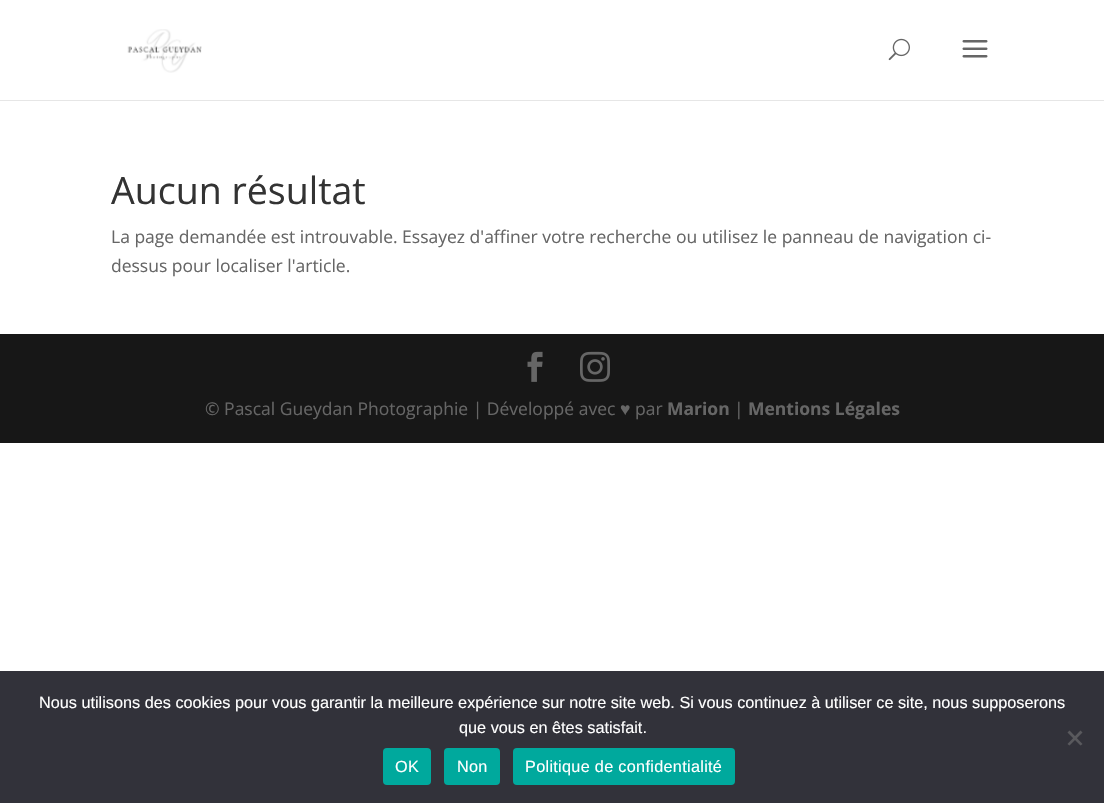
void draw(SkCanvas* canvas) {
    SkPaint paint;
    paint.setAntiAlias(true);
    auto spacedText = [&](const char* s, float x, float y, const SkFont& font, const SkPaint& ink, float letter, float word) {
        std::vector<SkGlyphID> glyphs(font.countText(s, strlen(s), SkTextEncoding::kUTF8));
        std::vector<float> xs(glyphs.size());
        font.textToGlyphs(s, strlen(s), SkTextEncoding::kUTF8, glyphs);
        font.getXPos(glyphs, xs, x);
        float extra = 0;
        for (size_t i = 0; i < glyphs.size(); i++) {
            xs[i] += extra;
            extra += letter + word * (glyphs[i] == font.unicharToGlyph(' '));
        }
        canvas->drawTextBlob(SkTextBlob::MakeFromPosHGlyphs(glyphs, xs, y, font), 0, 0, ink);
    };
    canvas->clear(0xFFFFFFFF);
    paint.setColor(0xFFE6E6E6);
    canvas->drawRect(SkRect::MakeXYWH(0, 100, 1104, 1), paint);
    canvas->drawImageRect(SkImages::DeferredFromEncodedData(SkData::MakeFromFileName("img1.png")), SkRect::MakeXYWH(127, 29, 75, 44), SkSamplingOptions());
    canvas->drawImageRect(SkImages::DeferredFromEncodedData(SkData::MakeFromFileName("img2.png")), SkRect::MakeXYWH(888, 38, 22, 23), SkSamplingOptions());
    canvas->drawImageRect(SkImages::DeferredFromEncodedData(SkData::MakeFromFileName("img3.png")), SkRect::MakeXYWH(962, 40, 26, 18), SkSamplingOptions());
    SkFont font1(fontMgr->matchFamilyStyle("Open Sans", SkFontStyle::Normal()), 37.5f);
    font1.setSubpixel(true);
    paint.setColor(0xFF333333);
    canvas->drawString("Aucun résultat", 111, 204, font1, paint);
    SkFont font2(fontMgr->matchFamilyStyle("Open Sans", SkFontStyle::Normal()), 17.5f);
    font2.setSubpixel(true);
    paint.setColor(0xFF666666);
    canvas->drawString("La page demandée est introuvable. Essayez d'affiner votre recherche ou utilisez le panneau de navigation ci-", 111, 243, font2, paint);
    canvas->drawString("dessus pour localiser l'article.", 111, 272, font2, paint);
    paint.setColor(0xFF171717);
    canvas->drawRect(SkRect::MakeXYWH(0, 334, 1104, 109), paint);
    canvas->drawImageRect(SkImages::DeferredFromEncodedData(SkData::MakeFromFileName("img4.png")), SkRect::MakeXYWH(527, 351, 16, 31), SkSamplingOptions());
    canvas->drawImageRect(SkImages::DeferredFromEncodedData(SkData::MakeFromFileName("img5.png")), SkRect::MakeXYWH(580, 351, 30, 31), SkSamplingOptions());
    paint.setColor(0xFF666666);
    canvas->drawString("© Pascal Gueydan Photographie | Développé avec", 205, 415, font2, paint);
    SkFont font3(fontMgr->matchFamilyStyle("Liberation Sans", SkFontStyle::Normal()), 17.5f);
    font3.setSubpixel(true);
    canvas->drawString("♥", 620, 415, font3, paint);
    canvas->drawString("par", 635, 415, font2, paint);
    SkFont font4(fontMgr->matchFamilyStyle("Open Sans", SkFontStyle::Bold()), 17.5f);
    font4.setSubpixel(true);
    canvas->drawString("Marion", 667, 415, font4, paint);
    canvas->drawString("|", 734, 415, font2, paint);
    canvas->drawString("Mentions Légales", 748, 415, font4, paint);
    paint.setColor(0xFF32323A);
    canvas->drawRect(SkRect::MakeXYWH(0, 671, 1104, 132), paint);
    SkFont font5(fontMgr->matchFamilyStyle("Liberation Sans", SkFontStyle::Normal()), 16.25f);
    font5.setSubpixel(true);
    paint.setColor(0xFFFFFFFF);
    canvas->drawString("Nous utilisons des cookies pour vous garantir la meilleure expérience sur notre site web. Si vous continuez à utiliser ce site, nous supposerons", 39, 708, font5, paint);
    canvas->drawString("que vous en êtes satisfait.", 459, 733, font5, paint);
    paint.setColor(0xFF59595D);
    canvas->drawPath(SkPathBuilder().moveTo(1080.5f, 730.5f).lineTo(1082.5f, 732.5f).lineTo(1069.5f, 745.5f).lineTo(1067.5f, 744).close().detach(), paint);
    canvas->drawPath(SkPathBuilder().moveTo(1067.5f, 732.5f).lineTo(1069.5f, 730.5f).lineTo(1082.5f, 744).lineTo(1080.5f, 745.5f).close().detach(), paint);
    paint.setColor(0xFF00A99D);
    canvas->drawRoundRect(SkRect::MakeXYWH(383, 748, 48, 37), 4, 4, paint);
    paint.setColor(0xFFFFFFFF);
    spacedText("OK", 395, 772, font5, paint, 0.3f, 0);
    paint.setColor(0xFF00A99D);
    canvas->drawRoundRect(SkRect::MakeXYWH(444, 748, 56, 37), 4, 4, paint);
    paint.setColor(0xFFFFFFFF);
    spacedText("Non", 457, 772, font5, paint, 0.3f, 0);
    paint.setColor(0xFF00A99D);
    canvas->drawRoundRect(SkRect::MakeXYWH(513, 748, 222, 37), 4, 4, paint);
    paint.setColor(0xFFFFFFFF);
    spacedText("Politique de confidentialité", 525, 772, font5, paint, 0.3f, 0);
}
